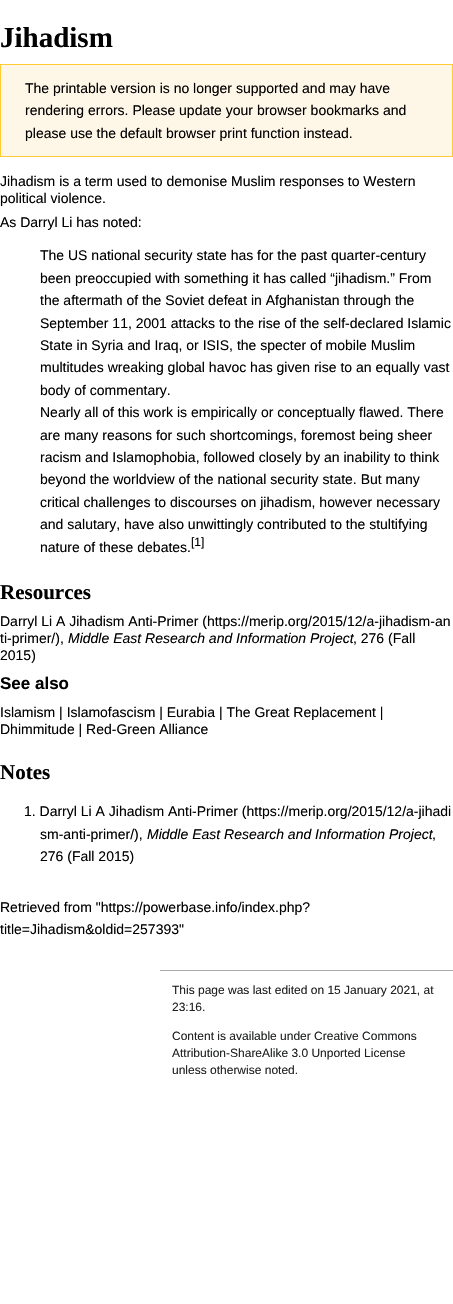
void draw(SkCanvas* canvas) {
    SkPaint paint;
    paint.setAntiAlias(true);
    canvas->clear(0xFFFFFFFF);
    SkFont font1(fontMgr->matchFamilyStyle("Liberation Serif", SkFontStyle::Bold()), 29);
    font1.setSubpixel(true);
    paint.setColor(0xFF000000);
    canvas->drawString("Jihadism", 0, 47, font1, paint);
    paint.setColor(0xFFFEF6E7);
    canvas->drawRect(SkRect::MakeXYWH(0.5f, 64.5f, 452, 92), paint);
    paint.setStyle(SkPaint::kStroke_Style);
    paint.setStrokeWidth(1);
    paint.setColor(0xFFFFCC33);
    canvas->drawRect(SkRect::MakeXYWH(0.5f, 64.5f, 452, 92), paint);
    SkFont font2(fontMgr->matchFamilyStyle("Liberation Sans", SkFontStyle::Normal()), 14);
    font2.setSubpixel(true);
    paint.setStyle(SkPaint::kFill_Style);
    paint.setColor(0xFF000000);
    canvas->drawString("The printable version is no longer supported and may have", 25, 93, font2, paint);
    canvas->drawString("rendering errors. Please update your browser bookmarks and", 25, 115, font2, paint);
    canvas->drawString("please use the default browser print function instead.", 25, 138, font2, paint);
    canvas->drawString("Jihadism is a term used to demonise Muslim responses to Western", 0, 186, font2, paint);
    canvas->drawString("political violence.", 0, 203, font2, paint);
    canvas->drawString("As Darryl Li has noted:", 0, 227, font2, paint);
    canvas->drawString("The US national security state has for the past quarter-century", 40, 260, font2, paint);
    canvas->drawString("been preoccupied with something it has called “jihadism.” From", 40, 283, font2, paint);
    canvas->drawString("the aftermath of the Soviet defeat in Afghanistan through the", 40, 305, font2, paint);
    canvas->drawString("September 11, 2001 attacks to the rise of the self-declared Islamic", 40, 328, font2, paint);
    canvas->drawString("State in Syria and Iraq, or ISIS, the specter of mobile Muslim", 40, 350, font2, paint);
    canvas->drawString("multitudes wreaking global havoc has given rise to an equally vast", 40, 372, font2, paint);
    canvas->drawString("body of commentary.", 40, 395, font2, paint);
    canvas->drawString("Nearly all of this work is empirically or conceptually flawed. There", 40, 417, font2, paint);
    canvas->drawString("are many reasons for such shortcomings, foremost being sheer", 40, 440, font2, paint);
    canvas->drawString("racism and Islamophobia, followed closely by an inability to think", 40, 462, font2, paint);
    canvas->drawString("beyond the worldview of the national security state. But many", 40, 484, font2, paint);
    canvas->drawString("critical challenges to discourses on jihadism, however necessary", 40, 507, font2, paint);
    canvas->drawString("and salutary, have also unwittingly contributed to the stultifying", 40, 529, font2, paint);
    canvas->drawString("nature of these debates.", 40, 552, font2, paint);
    SkFont font3(fontMgr->matchFamilyStyle("Liberation Sans", SkFontStyle::Normal()), 12);
    font3.setSubpixel(true);
    canvas->drawString("[1]", 191, 546, font3, paint);
    SkFont font4(fontMgr->matchFamilyStyle("Liberation Serif", SkFontStyle::Bold()), 21);
    font4.setSubpixel(true);
    canvas->drawString("Resources", 0, 599, font4, paint);
    canvas->drawString("Darryl Li A Jihadism Anti-Primer (https://merip.org/2015/12/a-jihadism-an", 0, 626, font2, paint);
    canvas->drawString("ti-primer/),", 0, 643, font2, paint);
    SkFont font5(fontMgr->matchFamilyStyle("Liberation Sans", SkFontStyle::Italic()), 14);
    font5.setSubpixel(true);
    canvas->drawString("Middle East Research and Information Project", 68, 643, font5, paint);
    canvas->drawString(", 276 (Fall", 353, 643, font2, paint);
    canvas->drawString("2015)", 0, 660, font2, paint);
    SkFont font6(fontMgr->matchFamilyStyle("Liberation Sans", SkFontStyle::Bold()), 17);
    font6.setSubpixel(true);
    canvas->drawString("See also", 0, 689, font6, paint);
    canvas->drawString("Islamism | Islamofascism | Eurabia | The Great Replacement |", 0, 717, font2, paint);
    canvas->drawString("Dhimmitude | Red-Green Alliance", 0, 734, font2, paint);
    canvas->drawString("Notes", 0, 779, font4, paint);
    canvas->drawString("1. Darryl Li A Jihadism Anti-Primer (https://merip.org/2015/12/a-jihadi", 24, 816, font2, paint);
    canvas->drawString("sm-anti-primer/),", 40, 839, font2, paint);
    canvas->drawString("Middle East Research and Information Project", 147, 839, font5, paint);
    canvas->drawString(",", 432, 839, font2, paint);
    canvas->drawString("276 (Fall 2015)", 40, 861, font2, paint);
    canvas->drawString("Retrieved from \"https://powerbase.info/index.php?", 0, 912, font2, paint);
    canvas->drawString("title=Jihadism&oldid=257393\"", 0, 934, font2, paint);
    paint.setColor(0xFFAAAAAA);
    canvas->drawRect(SkRect::MakeXYWH(160, 970, 293, 1), paint);
    paint.setColor(0xFF202122);
    canvas->drawString("This page was last edited on 15 January 2021, at", 172, 994, font3, paint);
    canvas->drawString("23:16.", 172, 1011, font3, paint);
    canvas->drawString("Content is available under Creative Commons", 172, 1040, font3, paint);
    canvas->drawString("Attribution-ShareAlike 3.0 Unported License", 172, 1057, font3, paint);
    canvas->drawString("unless otherwise noted.", 172, 1074, font3, paint);
}
